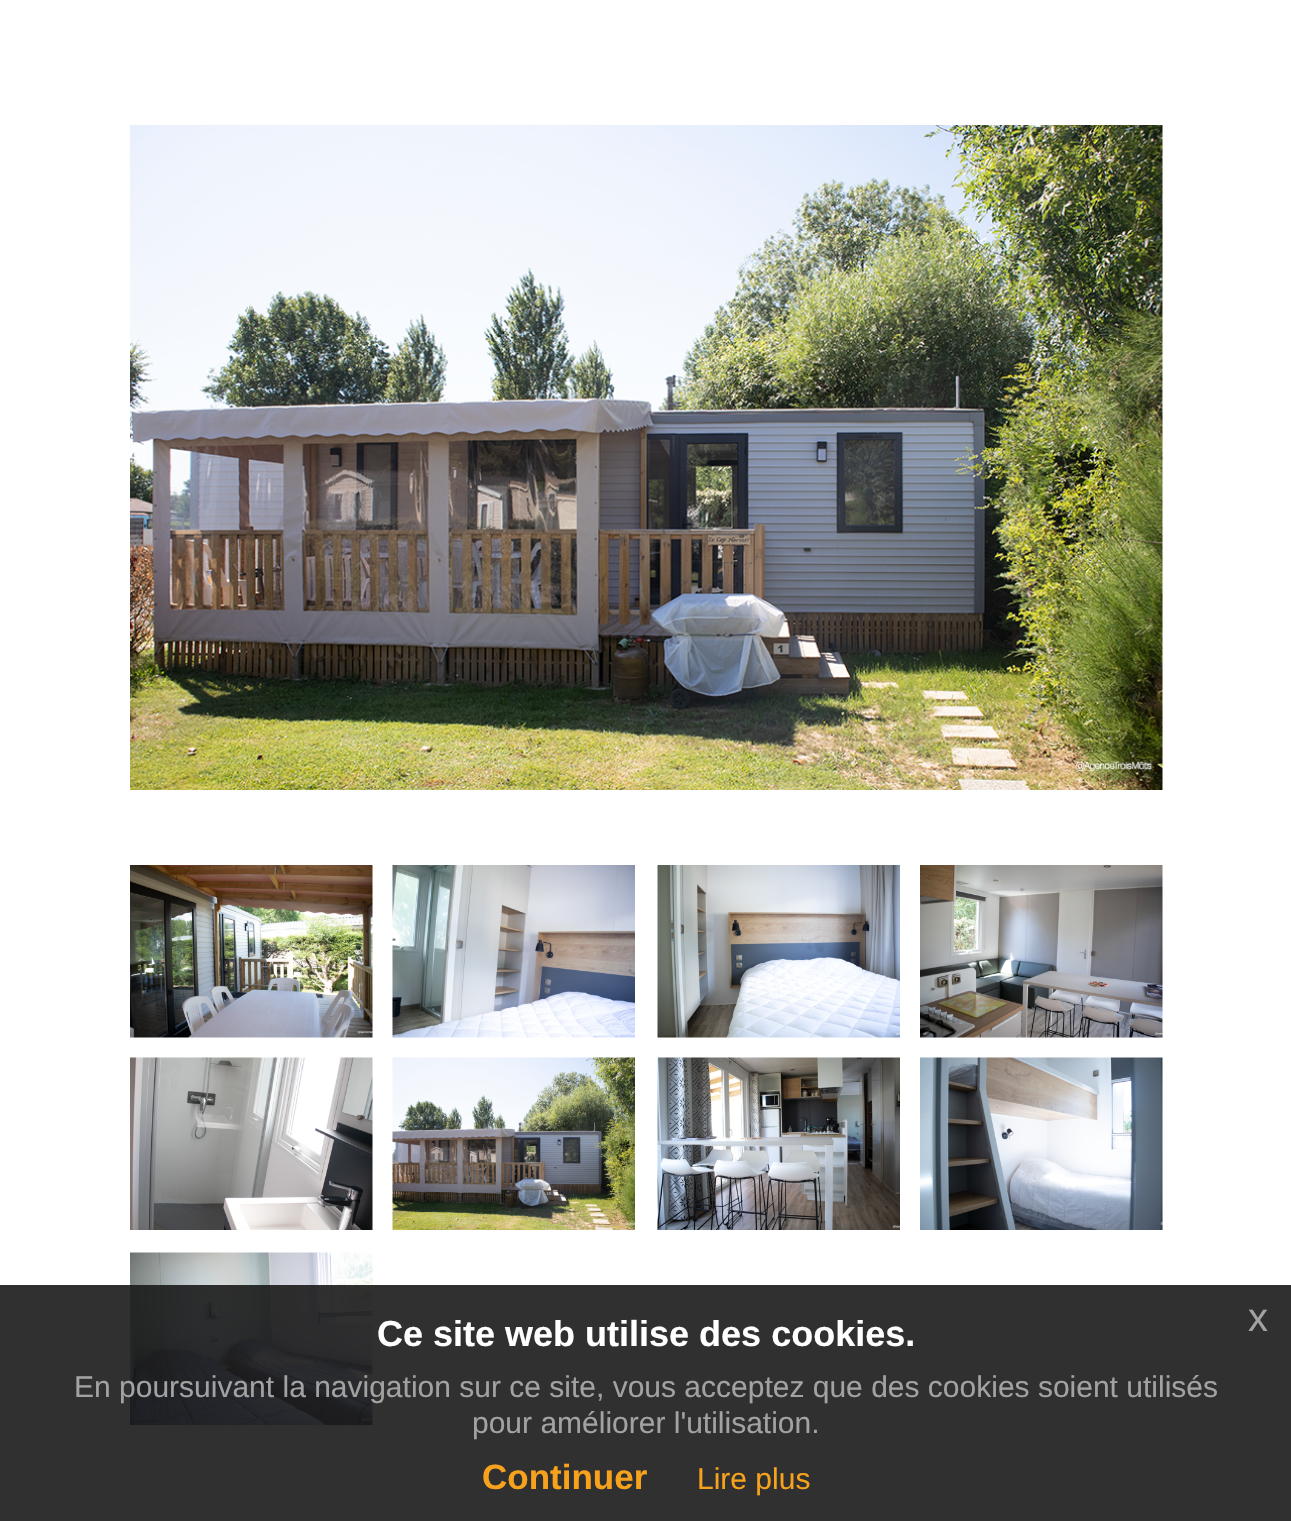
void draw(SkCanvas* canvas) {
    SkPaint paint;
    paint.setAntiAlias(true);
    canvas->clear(0xFFFFFFFF);
    canvas->drawImageRect(SkImages::DeferredFromEncodedData(SkData::MakeFromFileName("img1.png")), SkRect::MakeXYWH(130, 125, 1033, 665), SkSamplingOptions());
    canvas->drawImageRect(SkImages::DeferredFromEncodedData(SkData::MakeFromFileName("img2.png")), SkRect::MakeXYWH(130, 865, 243, 173), SkSamplingOptions());
    canvas->drawImageRect(SkImages::DeferredFromEncodedData(SkData::MakeFromFileName("img3.png")), SkRect::MakeXYWH(392, 865, 243, 173), SkSamplingOptions());
    canvas->drawImageRect(SkImages::DeferredFromEncodedData(SkData::MakeFromFileName("img4.png")), SkRect::MakeXYWH(657, 865, 243, 173), SkSamplingOptions());
    canvas->drawImageRect(SkImages::DeferredFromEncodedData(SkData::MakeFromFileName("img5.png")), SkRect::MakeXYWH(920, 865, 243, 173), SkSamplingOptions());
    canvas->drawImageRect(SkImages::DeferredFromEncodedData(SkData::MakeFromFileName("img6.png")), SkRect::MakeXYWH(130, 1057, 243, 173), SkSamplingOptions());
    canvas->drawImageRect(SkImages::DeferredFromEncodedData(SkData::MakeFromFileName("img7.png")), SkRect::MakeXYWH(392, 1057, 243, 173), SkSamplingOptions());
    canvas->drawImageRect(SkImages::DeferredFromEncodedData(SkData::MakeFromFileName("img8.png")), SkRect::MakeXYWH(657, 1057, 243, 173), SkSamplingOptions());
    canvas->drawImageRect(SkImages::DeferredFromEncodedData(SkData::MakeFromFileName("img9.png")), SkRect::MakeXYWH(920, 1057, 243, 173), SkSamplingOptions());
    canvas->drawImageRect(SkImages::DeferredFromEncodedData(SkData::MakeFromFileName("img10.png")), SkRect::MakeXYWH(130, 1252, 243, 173), SkSamplingOptions());
    paint.setColor(0xE6191919);
    canvas->drawRect(SkRect::MakeXYWH(0, 1285, 1291, 236), paint);
    SkFont font1(fontMgr->matchFamilyStyle("Liberation Sans", SkFontStyle::Bold()), 36);
    font1.setSubpixel(true);
    paint.setColor(0xFFFFFFFF);
    canvas->drawString("Ce site web utilise des cookies.", 377, 1346, font1, paint);
    SkFont font2(fontMgr->matchFamilyStyle("Liberation Sans", SkFontStyle::Normal()), 40);
    font2.setSubpixel(true);
    paint.setColor(0xFFA2A2A2);
    canvas->drawString("x", 1248, 1331, font2, paint);
    SkFont font3(fontMgr->matchFamilyStyle("Liberation Sans", SkFontStyle::Normal()), 30);
    font3.setSubpixel(true);
    canvas->drawString("En poursuivant la navigation sur ce site, vous acceptez que des cookies soient utilisés", 74, 1397, font3, paint);
    canvas->drawString("pour améliorer l'utilisation.", 472, 1433, font3, paint);
    SkFont font4(fontMgr->matchFamilyStyle("Liberation Sans", SkFontStyle::Bold()), 35);
    font4.setSubpixel(true);
    paint.setColor(0xFFF6A21D);
    canvas->drawString("Continuer", 482, 1489, font4, paint);
    canvas->drawString("Lire plus", 697, 1489, font3, paint);
}
